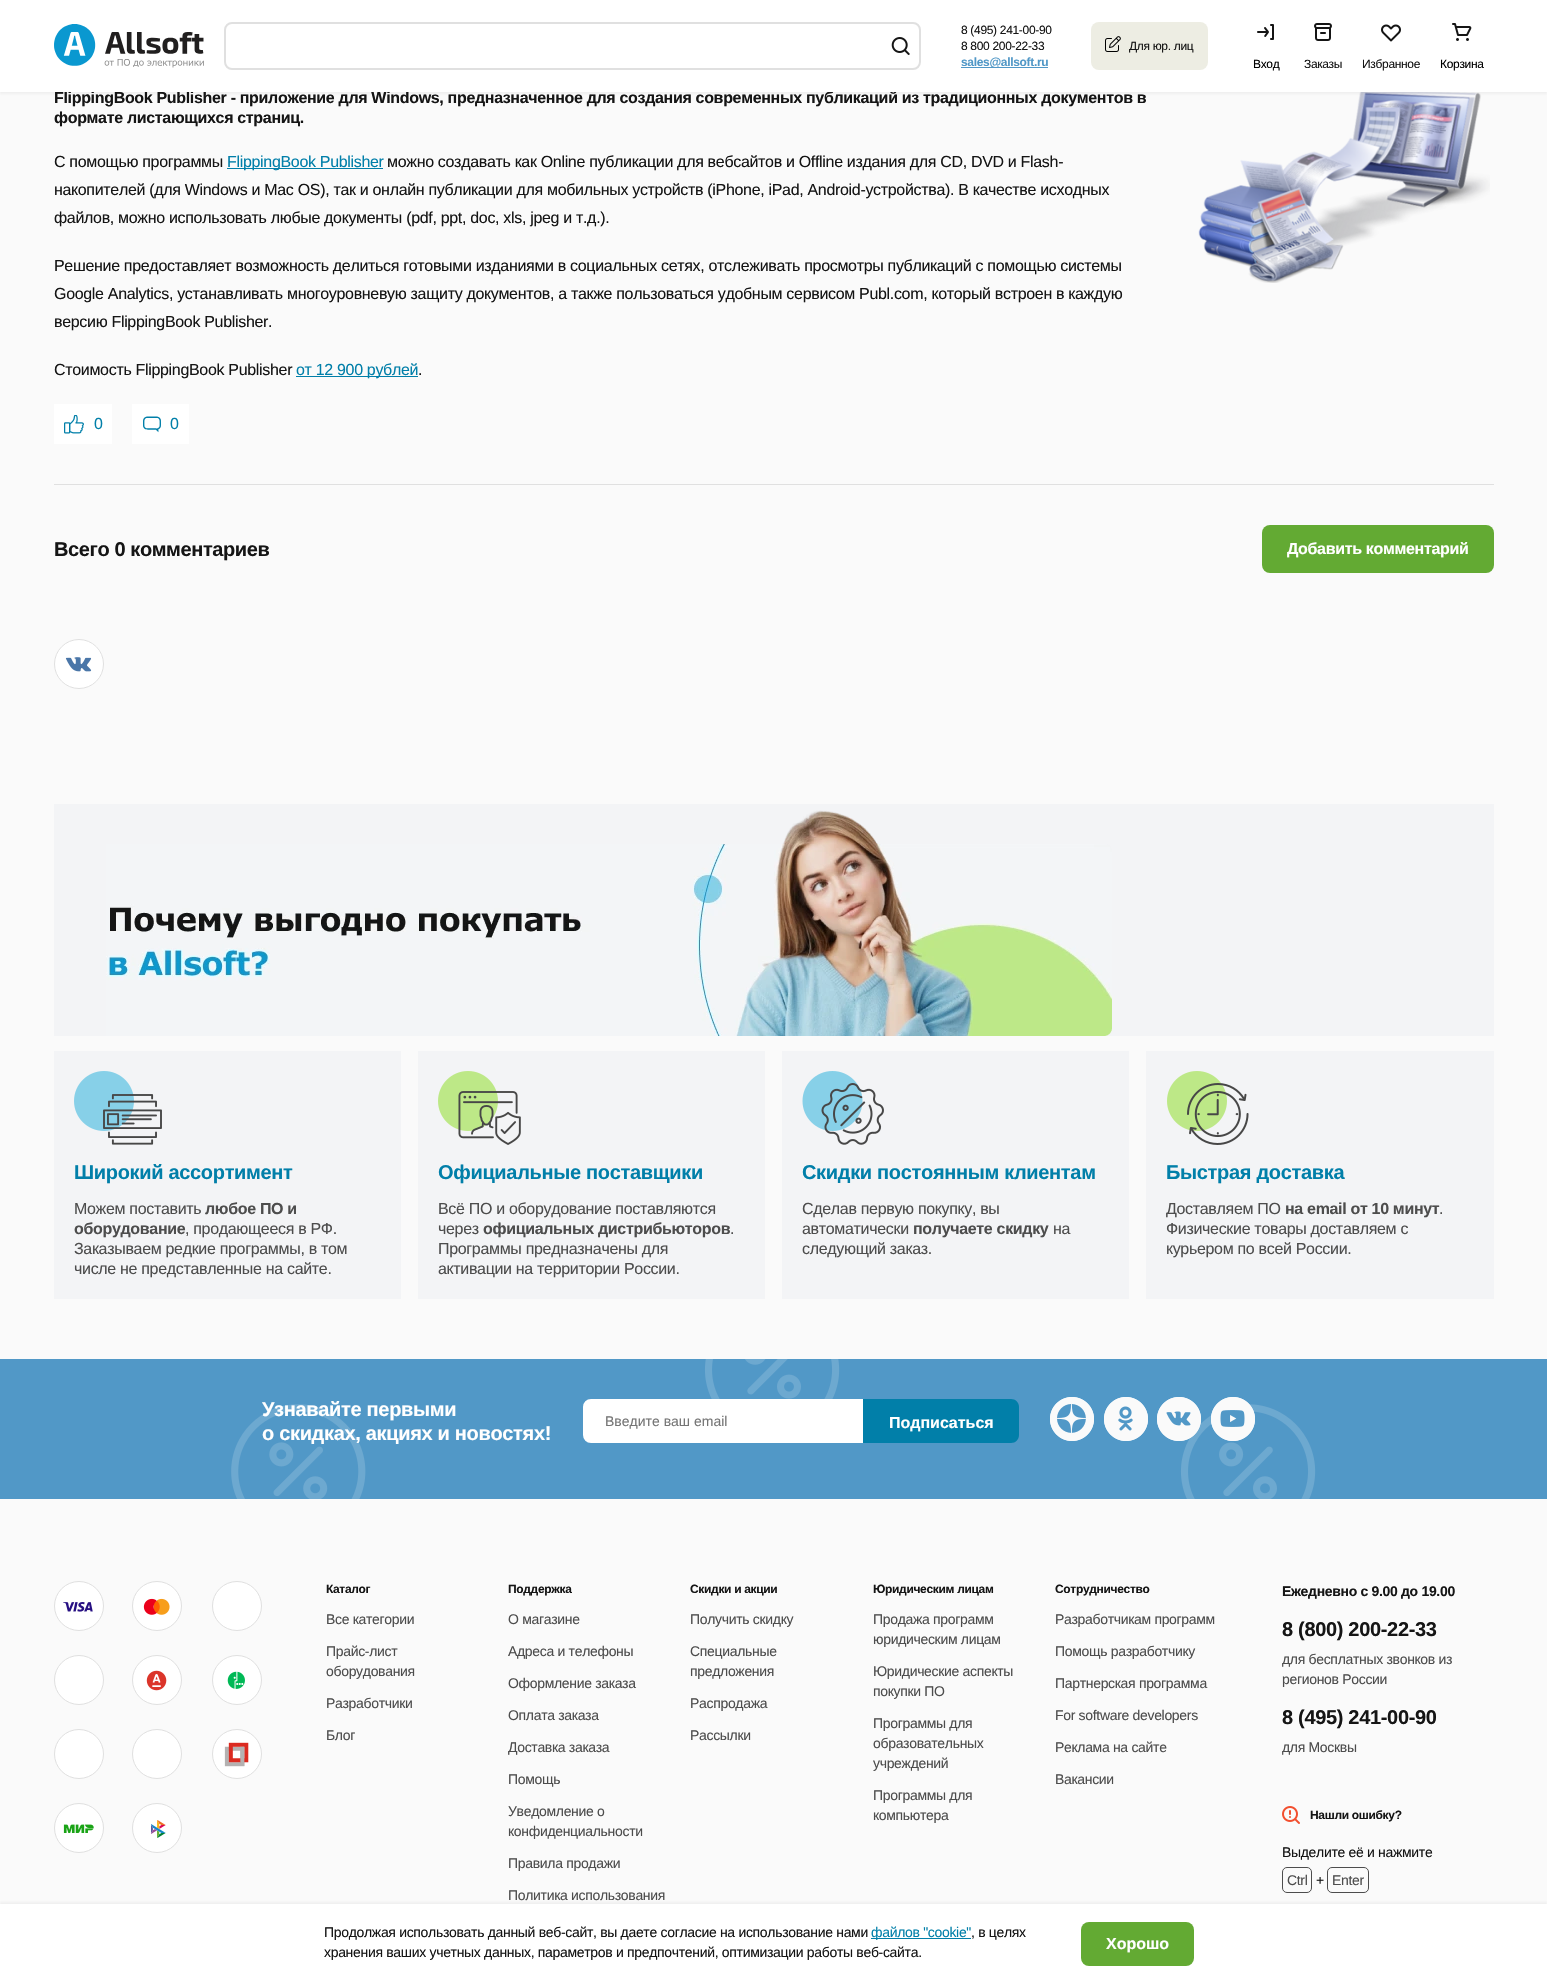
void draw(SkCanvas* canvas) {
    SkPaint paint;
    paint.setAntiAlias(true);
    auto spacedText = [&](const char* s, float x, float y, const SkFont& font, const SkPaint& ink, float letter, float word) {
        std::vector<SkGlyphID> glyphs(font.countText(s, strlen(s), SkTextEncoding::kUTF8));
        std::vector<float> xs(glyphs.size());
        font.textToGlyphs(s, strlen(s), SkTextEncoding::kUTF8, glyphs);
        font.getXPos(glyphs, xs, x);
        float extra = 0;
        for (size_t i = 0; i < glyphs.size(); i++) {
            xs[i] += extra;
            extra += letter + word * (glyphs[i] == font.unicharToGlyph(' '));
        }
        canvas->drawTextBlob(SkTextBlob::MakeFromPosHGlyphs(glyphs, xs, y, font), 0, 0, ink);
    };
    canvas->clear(0xFFFAFAFA);
    canvas->drawImageRect(SkImages::DeferredFromEncodedData(SkData::MakeFromFileName("img8.png")), SkRect::MakeXYWH(1198, 92, 292, 191), SkSamplingOptions());
    paint.setColor(0x14777777);
    paint.setMaskFilter(SkMaskFilter::MakeBlur(kNormal_SkBlurStyle, 1));
    canvas->drawRect(SkRect::MakeXYWH(0, 2, 1547, 92), paint);
    paint.setMaskFilter(nullptr);
    SkFont font1(fontMgr->matchFamilyStyle("Liberation Sans", SkFontStyle::Bold()), 16);
    font1.setSubpixel(true);
    paint.setColor(0xFF151515);
    spacedText("FlippingBook Publisher - приложение для Windows, предназначенное для создания современных публикаций из традиционных документов в", 54, 103, font1, paint, -0.32f, 0);
    paint.setColor(0xFFFFFFFF);
    canvas->drawRect(SkRect::MakeXYWH(0, 0, 1547, 92), paint);
    canvas->drawImageRect(SkImages::DeferredFromEncodedData(SkData::MakeFromFileName("img1.png")), SkRect::MakeXYWH(54, 24, 150, 44), SkSamplingOptions());
    paint.setStyle(SkPaint::kStroke_Style);
    paint.setStrokeWidth(2);
    paint.setColor(0xFFE0E0E0);
    canvas->drawRoundRect(SkRect::MakeXYWH(225, 23, 695, 46), 7, 7, paint);
    canvas->drawImageRect(SkImages::DeferredFromEncodedData(SkData::MakeFromFileName("img2.png")), SkRect::MakeXYWH(891, 37, 19, 18), SkSamplingOptions());
    SkFont font2(fontMgr->matchFamilyStyle("Liberation Sans", SkFontStyle::Normal()), 12);
    font2.setSubpixel(true);
    paint.setStyle(SkPaint::kFill_Style);
    paint.setColor(0xFF151515);
    spacedText("8 (495) 241-00-90", 961, 34, font2, paint, -0.32f, 0);
    spacedText("8 800 200-22-33", 961, 50, font2, paint, -0.32f, 0);
    paint.setColor(0xFF5198C7);
    canvas->drawRect(SkRect::MakeXYWH(961, 67, 87, 1), paint);
    SkFont font3(fontMgr->matchFamilyStyle("Liberation Sans", SkFontStyle::Bold()), 12);
    font3.setSubpixel(true);
    spacedText("sales@allsoft.ru", 961, 66, font3, paint, -0.32f, 0);
    paint.setColor(0xFFEDEDE3);
    canvas->drawRoundRect(SkRect::MakeXYWH(1091, 22, 117, 48), 8, 8, paint);
    canvas->drawImageRect(SkImages::DeferredFromEncodedData(SkData::MakeFromFileName("img3.png")), SkRect::MakeXYWH(1105, 36, 16, 16), SkSamplingOptions());
    paint.setColor(0xFF151515);
    spacedText("Для юр. лиц", 1129, 50, font2, paint, -0.32f, 0);
    canvas->drawImageRect(SkImages::DeferredFromEncodedData(SkData::MakeFromFileName("img4.png")), SkRect::MakeXYWH(1257, 24, 17, 16), SkSamplingOptions());
    paint.setColor(0xFF000000);
    spacedText("Вход", 1253, 68, font2, paint, -0.32f, 0);
    canvas->drawImageRect(SkImages::DeferredFromEncodedData(SkData::MakeFromFileName("img5.png")), SkRect::MakeXYWH(1314, 23, 18, 18), SkSamplingOptions());
    paint.setColor(0xFF151515);
    spacedText("Заказы", 1304, 68, font2, paint, -0.32f, 0);
    canvas->drawImageRect(SkImages::DeferredFromEncodedData(SkData::MakeFromFileName("img6.png")), SkRect::MakeXYWH(1381, 24, 20, 18), SkSamplingOptions());
    spacedText("Избранное", 1362, 68, font2, paint, -0.32f, 0);
    canvas->drawImageRect(SkImages::DeferredFromEncodedData(SkData::MakeFromFileName("img7.png")), SkRect::MakeXYWH(1452, 23, 20, 18), SkSamplingOptions());
    paint.setColor(0xFF000000);
    spacedText("Корзина", 1440, 68, font2, paint, -0.32f, 0);
    paint.setColor(0xFFE0E0E0);
    canvas->drawRect(SkRect::MakeXYWH(54, 484, 1440, 1), paint);
    paint.setColor(0xFF151515);
    spacedText("формате листающихся страниц.", 54, 123, font1, paint, -0.32f, 0);
    SkFont font4(fontMgr->matchFamilyStyle("Liberation Sans", SkFontStyle::Normal()), 16);
    font4.setSubpixel(true);
    spacedText("С помощью программы", 54, 167, font4, paint, -0.32f, 0);
    paint.setColor(0xFF017FA9);
    canvas->drawRect(SkRect::MakeXYWH(227, 168, 156, 1), paint);
    spacedText("FlippingBook Publisher", 227, 167, font4, paint, -0.32f, 0);
    paint.setColor(0xFF151515);
    spacedText("можно создавать как Online публикации для вебсайтов и Offline издания для CD, DVD и Flash-", 387, 167, font4, paint, -0.32f, 0);
    spacedText("накопителей (для Windows и Mac OS), так и онлайн публикации для мобильных устройств (iPhone, iPad, Android-устройства). В качестве исходных", 54, 195, font4, paint, -0.32f, 0);
    spacedText("файлов, можно использовать любые документы (pdf, ppt, doc, xls, jpeg и т.д.).", 54, 223, font4, paint, -0.32f, 0);
    spacedText("Решение предоставляет возможность делиться готовыми изданиями в социальных сетях, отслеживать просмотры публикаций с помощью системы", 54, 271, font4, paint, -0.32f, 0);
    spacedText("Google Analytics, устанавливать многоуровневую защиту документов, а также пользоваться удобным сервисом Publ.com, который встроен в каждую", 54, 299, font4, paint, -0.32f, 0);
    spacedText("версию FlippingBook Publisher.", 54, 327, font4, paint, -0.32f, 0);
    spacedText("Стоимость FlippingBook Publisher", 54, 375, font4, paint, -0.32f, 0);
    paint.setColor(0xFF017FA9);
    canvas->drawRect(SkRect::MakeXYWH(296, 376, 122, 1), paint);
    spacedText("от 12 900 рублей", 296, 375, font4, paint, -0.32f, 0);
    paint.setColor(0xFF151515);
    spacedText(".", 418, 375, font4, paint, -0.32f, 0);
    paint.setColor(0xFFFFFFFF);
    canvas->drawRect(SkRect::MakeXYWH(54, 404, 58, 40), paint);
    canvas->drawImageRect(SkImages::DeferredFromEncodedData(SkData::MakeFromFileName("img9.png")), SkRect::MakeXYWH(64, 415, 20, 19), SkSamplingOptions());
    paint.setColor(0xFF017FA9);
    spacedText("0", 94, 429, font4, paint, -0.32f, 0);
    paint.setColor(0xFFFFFFFF);
    canvas->drawRect(SkRect::MakeXYWH(132, 404, 57, 40), paint);
    canvas->drawImageRect(SkImages::DeferredFromEncodedData(SkData::MakeFromFileName("img10.png")), SkRect::MakeXYWH(143, 416, 18, 17), SkSamplingOptions());
    paint.setColor(0xFF017FA9);
    spacedText("0", 170, 429, font4, paint, -0.32f, 0);
    SkFont font5(fontMgr->matchFamilyStyle("Liberation Sans", SkFontStyle::Bold()), 20);
    font5.setSubpixel(true);
    paint.setColor(0xFF151515);
    spacedText("Всего 0 комментариев", 54, 556, font5, paint, -0.4f, 0);
    paint.setColor(0xFF63AA33);
    canvas->drawRoundRect(SkRect::MakeXYWH(1262, 525, 232, 48), 8, 8, paint);
    paint.setColor(0xFFFFFFFF);
    spacedText("Добавить комментарий", 1287, 554, font1, paint, -0.32f, 0);
    canvas->drawCircle(79, 664, 25, paint);
    canvas->drawImageRect(SkImages::DeferredFromEncodedData(SkData::MakeFromFileName("img11.png")), SkRect::MakeXYWH(65, 657, 27, 15), SkSamplingOptions());
    paint.setStyle(SkPaint::kStroke_Style);
    paint.setStrokeWidth(1);
    paint.setColor(0xFFE0E0E0);
    canvas->drawCircle(79, 664, 24.5f, paint);
    paint.setStyle(SkPaint::kFill_Style);
    paint.setColor(0xFFF3F4F6);
    canvas->drawRect(SkRect::MakeXYWH(54, 804, 1440, 232), paint);
    canvas->drawImageRect(SkImages::DeferredFromEncodedData(SkData::MakeFromFileName("img12.png")), SkRect::MakeXYWH(106, 810, 1006, 226), SkSamplingOptions());
    canvas->drawRect(SkRect::MakeXYWH(54, 1051, 347, 248), paint);
    canvas->drawImageRect(SkImages::DeferredFromEncodedData(SkData::MakeFromFileName("img13.png")), SkRect::MakeXYWH(74, 1071, 88, 74), SkSamplingOptions());
    paint.setColor(0xFF017FA9);
    spacedText("Широкий ассортимент", 74, 1179, font5, paint, -0.32f, 0);
    paint.setColor(0xFF4D4D4D);
    spacedText("Можем поставить", 74, 1214, font4, paint, -0.32f, 0);
    spacedText("любое ПО и", 205, 1214, font1, paint, -0.32f, 0);
    spacedText("оборудование", 74, 1234, font1, paint, -0.32f, 0);
    spacedText(", продающееся в РФ.", 185, 1234, font4, paint, -0.32f, 0);
    spacedText("Заказываем редкие программы, в том", 74, 1254, font4, paint, -0.32f, 0);
    spacedText("числе не представленные на сайте.", 74, 1274, font4, paint, -0.32f, 0);
    paint.setColor(0xFFF3F4F6);
    canvas->drawRect(SkRect::MakeXYWH(418, 1051, 347, 248), paint);
    canvas->drawImageRect(SkImages::DeferredFromEncodedData(SkData::MakeFromFileName("img14.png")), SkRect::MakeXYWH(438, 1071, 83, 74), SkSamplingOptions());
    paint.setColor(0xFF017FA9);
    spacedText("Официальные поставщики", 438, 1179, font5, paint, -0.32f, 0);
    paint.setColor(0xFF4D4D4D);
    spacedText("Всё ПО и оборудование поставляются", 438, 1214, font4, paint, -0.32f, 0);
    spacedText("через", 438, 1234, font4, paint, -0.32f, 0);
    spacedText("официальных дистрибьюторов", 483, 1234, font1, paint, -0.32f, 0);
    spacedText(".", 730, 1234, font4, paint, -0.32f, 0);
    spacedText("Программы предназначены для", 438, 1254, font4, paint, -0.32f, 0);
    spacedText("активации на территории России.", 438, 1274, font4, paint, -0.32f, 0);
    paint.setColor(0xFFF3F4F6);
    canvas->drawRect(SkRect::MakeXYWH(782, 1051, 347, 248), paint);
    canvas->drawImageRect(SkImages::DeferredFromEncodedData(SkData::MakeFromFileName("img15.png")), SkRect::MakeXYWH(802, 1071, 82, 74), SkSamplingOptions());
    paint.setColor(0xFF017FA9);
    spacedText("Скидки постоянным клиентам", 802, 1179, font5, paint, -0.32f, 0);
    paint.setColor(0xFF4D4D4D);
    spacedText("Сделав первую покупку, вы", 802, 1214, font4, paint, -0.32f, 0);
    spacedText("автоматически", 802, 1234, font4, paint, -0.32f, 0);
    spacedText("получаете скидку", 913, 1234, font1, paint, -0.32f, 0);
    spacedText("на", 1053, 1234, font4, paint, -0.32f, 0);
    spacedText("следующий заказ.", 802, 1254, font4, paint, -0.32f, 0);
    paint.setColor(0xFFF3F4F6);
    canvas->drawRect(SkRect::MakeXYWH(1146, 1051, 348, 248), paint);
    canvas->drawImageRect(SkImages::DeferredFromEncodedData(SkData::MakeFromFileName("img16.png")), SkRect::MakeXYWH(1167, 1071, 82, 74), SkSamplingOptions());
    paint.setColor(0xFF017FA9);
    spacedText("Быстрая доставка", 1166, 1179, font5, paint, -0.32f, 0);
    paint.setColor(0xFF4D4D4D);
    spacedText("Доставляем ПО", 1166, 1214, font4, paint, -0.32f, 0);
    spacedText("на email от 10 минут", 1285, 1214, font1, paint, -0.32f, 0);
    spacedText(".", 1439, 1214, font4, paint, -0.32f, 0);
    spacedText("Физические товары доставляем с", 1166, 1234, font4, paint, -0.32f, 0);
    spacedText("курьером по всей России.", 1166, 1254, font4, paint, -0.32f, 0);
    paint.setColor(0xFF5198C7);
    canvas->drawRect(SkRect::MakeXYWH(0, 1359, 1547, 140), paint);
    canvas->drawImageRect(SkImages::DeferredFromEncodedData(SkData::MakeFromFileName("img17.png")), SkRect::MakeXYWH(231, 1359, 1085, 140), SkSamplingOptions());
    paint.setColor(0xFFFFFFFF);
    spacedText("Узнавайте первыми", 262, 1416, font5, paint, -0.32f, 0);
    spacedText("о скидках, акциях и новостях!", 262, 1440, font5, paint, -0.32f, 0);
    canvas->drawPath(SkPathBuilder().moveTo(591, 1400).lineTo(862, 1400).lineTo(862, 1442).lineTo(591, 1442).cubicTo(587, 1442, 584, 1439, 584, 1435).lineTo(584, 1407).cubicTo(584, 1403, 587, 1400, 591, 1400).close().detach(), paint);
    paint.setStyle(SkPaint::kStroke_Style);
    paint.setStrokeWidth(2);
    canvas->drawPath(SkPathBuilder().moveTo(591, 1400).lineTo(862, 1400).lineTo(862, 1442).lineTo(591, 1442).cubicTo(587, 1442, 584, 1439, 584, 1435).lineTo(584, 1407).cubicTo(584, 1403, 587, 1400, 591, 1400).close().detach(), paint);
    SkFont font6(fontMgr->matchFamilyStyle("Liberation Sans", SkFontStyle::Normal()), 14);
    font6.setSubpixel(true);
    paint.setStyle(SkPaint::kFill_Style);
    paint.setColor(0xFF757575);
    canvas->drawString("Введите ваш email", 605, 1426, font6, paint);
    paint.setColor(0xFF017FA9);
    canvas->drawPath(SkPathBuilder().moveTo(863, 1399).lineTo(1011, 1399).cubicTo(1015.5f, 1399, 1019, 1402.5f, 1019, 1407).lineTo(1019, 1435).cubicTo(1019, 1439.5f, 1015.5f, 1443, 1011, 1443).lineTo(863, 1443).close().detach(), paint);
    paint.setColor(0xFFFFFFFF);
    canvas->drawString("Подписаться", 889, 1428, font1, paint);
    canvas->drawImageRect(SkImages::DeferredFromEncodedData(SkData::MakeFromFileName("img18.png")), SkRect::MakeXYWH(1050, 1397, 44, 44), SkSamplingOptions());
    canvas->drawImageRect(SkImages::DeferredFromEncodedData(SkData::MakeFromFileName("img19.png")), SkRect::MakeXYWH(1104, 1397, 44, 44), SkSamplingOptions());
    canvas->drawImageRect(SkImages::DeferredFromEncodedData(SkData::MakeFromFileName("img20.png")), SkRect::MakeXYWH(1157, 1397, 44, 44), SkSamplingOptions());
    canvas->drawImageRect(SkImages::DeferredFromEncodedData(SkData::MakeFromFileName("img21.png")), SkRect::MakeXYWH(1211, 1397, 44, 44), SkSamplingOptions());
    canvas->drawCircle(79, 1606, 24.5f, paint);
    paint.setStyle(SkPaint::kStroke_Style);
    paint.setStrokeWidth(1);
    paint.setColor(0xFFE0E0E0);
    canvas->drawCircle(79, 1606, 24.5f, paint);
    canvas->drawImageRect(SkImages::DeferredFromEncodedData(SkData::MakeFromFileName("img22.png")), SkRect::MakeXYWH(63, 1602, 30, 10), SkSamplingOptions());
    paint.setStyle(SkPaint::kFill_Style);
    paint.setColor(0xFFFFFFFF);
    canvas->drawCircle(157, 1606, 24.5f, paint);
    paint.setStyle(SkPaint::kStroke_Style);
    paint.setColor(0xFFE0E0E0);
    canvas->drawCircle(157, 1606, 24.5f, paint);
    canvas->drawImageRect(SkImages::DeferredFromEncodedData(SkData::MakeFromFileName("img23.png")), SkRect::MakeXYWH(143, 1598, 27, 17), SkSamplingOptions());
    paint.setStyle(SkPaint::kFill_Style);
    paint.setColor(0xFFFFFFFF);
    canvas->drawCircle(237, 1606, 24.5f, paint);
    paint.setStyle(SkPaint::kStroke_Style);
    paint.setColor(0xFFE0E0E0);
    canvas->drawCircle(237, 1606, 24.5f, paint);
    paint.setStyle(SkPaint::kFill_Style);
    paint.setColor(0xFFFFFFFF);
    canvas->drawCircle(79, 1680, 24.5f, paint);
    paint.setStyle(SkPaint::kStroke_Style);
    paint.setColor(0xFFE0E0E0);
    canvas->drawCircle(79, 1680, 24.5f, paint);
    paint.setStyle(SkPaint::kFill_Style);
    paint.setColor(0xFFFFFFFF);
    canvas->drawCircle(157, 1680, 24.5f, paint);
    paint.setStyle(SkPaint::kStroke_Style);
    paint.setColor(0xFFE0E0E0);
    canvas->drawCircle(157, 1680, 24.5f, paint);
    canvas->drawImageRect(SkImages::DeferredFromEncodedData(SkData::MakeFromFileName("img24.png")), SkRect::MakeXYWH(146, 1670, 21, 21), SkSamplingOptions());
    paint.setStyle(SkPaint::kFill_Style);
    paint.setColor(0xFFFFFFFF);
    canvas->drawCircle(237, 1680, 24.5f, paint);
    paint.setStyle(SkPaint::kStroke_Style);
    paint.setColor(0xFFE0E0E0);
    canvas->drawCircle(237, 1680, 24.5f, paint);
    canvas->drawImageRect(SkImages::DeferredFromEncodedData(SkData::MakeFromFileName("img25.png")), SkRect::MakeXYWH(227, 1671, 18, 18), SkSamplingOptions());
    paint.setStyle(SkPaint::kFill_Style);
    paint.setColor(0xFFFFFFFF);
    canvas->drawCircle(79, 1754, 24.5f, paint);
    paint.setStyle(SkPaint::kStroke_Style);
    paint.setColor(0xFFE0E0E0);
    canvas->drawCircle(79, 1754, 24.5f, paint);
    paint.setStyle(SkPaint::kFill_Style);
    paint.setColor(0xFFFFFFFF);
    canvas->drawCircle(157, 1754, 24.5f, paint);
    paint.setStyle(SkPaint::kStroke_Style);
    paint.setColor(0xFFE0E0E0);
    canvas->drawCircle(157, 1754, 24.5f, paint);
    paint.setStyle(SkPaint::kFill_Style);
    paint.setColor(0xFFFFFFFF);
    canvas->drawCircle(237, 1754, 24.5f, paint);
    paint.setStyle(SkPaint::kStroke_Style);
    paint.setColor(0xFFE0E0E0);
    canvas->drawCircle(237, 1754, 24.5f, paint);
    canvas->drawImageRect(SkImages::DeferredFromEncodedData(SkData::MakeFromFileName("img26.png")), SkRect::MakeXYWH(224, 1742, 25, 25), SkSamplingOptions());
    paint.setStyle(SkPaint::kFill_Style);
    paint.setColor(0xFFFFFFFF);
    canvas->drawCircle(79, 1828, 24.5f, paint);
    paint.setStyle(SkPaint::kStroke_Style);
    paint.setColor(0xFFE0E0E0);
    canvas->drawCircle(79, 1828, 24.5f, paint);
    canvas->drawImageRect(SkImages::DeferredFromEncodedData(SkData::MakeFromFileName("img27.png")), SkRect::MakeXYWH(63, 1824, 31, 9), SkSamplingOptions());
    paint.setStyle(SkPaint::kFill_Style);
    paint.setColor(0xFFFFFFFF);
    canvas->drawCircle(157, 1828, 24.5f, paint);
    paint.setStyle(SkPaint::kStroke_Style);
    paint.setColor(0xFFE0E0E0);
    canvas->drawCircle(157, 1828, 24.5f, paint);
    canvas->drawImageRect(SkImages::DeferredFromEncodedData(SkData::MakeFromFileName("img28.png")), SkRect::MakeXYWH(151, 1820, 15, 18), SkSamplingOptions());
    paint.setStyle(SkPaint::kFill_Style);
    paint.setColor(0xFF151515);
    spacedText("Каталог", 326, 1593, font3, paint, -0.32f, 0);
    paint.setColor(0xFF4D4D4D);
    spacedText("Все категории", 326, 1624, font6, paint, -0.32f, 0);
    spacedText("Прайс-лист", 326, 1656, font6, paint, -0.32f, 0);
    spacedText("оборудования", 326, 1676, font6, paint, -0.32f, 0);
    spacedText("Разработчики", 326, 1708, font6, paint, -0.32f, 0);
    spacedText("Блог", 326, 1740, font6, paint, -0.32f, 0);
    paint.setColor(0xFF151515);
    spacedText("Поддержка", 508, 1593, font3, paint, -0.32f, 0);
    paint.setColor(0xFF4D4D4D);
    spacedText("О магазине", 508, 1624, font6, paint, -0.32f, 0);
    spacedText("Адреса и телефоны", 508, 1656, font6, paint, -0.32f, 0);
    spacedText("Оформление заказа", 508, 1688, font6, paint, -0.32f, 0);
    spacedText("Оплата заказа", 508, 1720, font6, paint, -0.32f, 0);
    spacedText("Доставка заказа", 508, 1752, font6, paint, -0.32f, 0);
    spacedText("Помощь", 508, 1784, font6, paint, -0.32f, 0);
    spacedText("Уведомление о", 508, 1816, font6, paint, -0.32f, 0);
    spacedText("конфиденциальности", 508, 1836, font6, paint, -0.32f, 0);
    spacedText("Правила продажи", 508, 1868, font6, paint, -0.32f, 0);
    spacedText("Политика использования", 508, 1900, font6, paint, -0.32f, 0);
    paint.setColor(0xFF151515);
    spacedText("Скидки и акции", 690, 1593, font3, paint, -0.32f, 0);
    paint.setColor(0xFF4D4D4D);
    spacedText("Получить скидку", 690, 1624, font6, paint, -0.32f, 0);
    spacedText("Специальные", 690, 1656, font6, paint, -0.32f, 0);
    spacedText("предложения", 690, 1676, font6, paint, -0.32f, 0);
    spacedText("Распродажа", 690, 1708, font6, paint, -0.32f, 0);
    spacedText("Рассылки", 690, 1740, font6, paint, -0.32f, 0);
    paint.setColor(0xFF151515);
    spacedText("Юридическим лицам", 873, 1593, font3, paint, -0.32f, 0);
    paint.setColor(0xFF4D4D4D);
    spacedText("Продажа программ", 873, 1624, font6, paint, -0.32f, 0);
    spacedText("юридическим лицам", 873, 1644, font6, paint, -0.32f, 0);
    spacedText("Юридические аспекты", 873, 1676, font6, paint, -0.32f, 0);
    spacedText("покупки ПО", 873, 1696, font6, paint, -0.32f, 0);
    spacedText("Программы для", 873, 1728, font6, paint, -0.32f, 0);
    spacedText("образовательных", 873, 1748, font6, paint, -0.32f, 0);
    spacedText("учреждений", 873, 1768, font6, paint, -0.32f, 0);
    spacedText("Программы для", 873, 1800, font6, paint, -0.32f, 0);
    spacedText("компьютера", 873, 1820, font6, paint, -0.32f, 0);
    paint.setColor(0xFF151515);
    spacedText("Сотрудничество", 1055, 1593, font3, paint, -0.32f, 0);
    paint.setColor(0xFF4D4D4D);
    spacedText("Разработчикам программ", 1055, 1624, font6, paint, -0.32f, 0);
    spacedText("Помощь разработчику", 1055, 1656, font6, paint, -0.32f, 0);
    spacedText("Партнерская программа", 1055, 1688, font6, paint, -0.32f, 0);
    spacedText("For software developers", 1055, 1720, font6, paint, -0.32f, 0);
    spacedText("Реклама на сайте", 1055, 1752, font6, paint, -0.32f, 0);
    spacedText("Вакансии", 1055, 1784, font6, paint, -0.32f, 0);
    SkFont font7(fontMgr->matchFamilyStyle("Liberation Sans", SkFontStyle::Bold()), 14);
    font7.setSubpixel(true);
    paint.setColor(0xFF151515);
    spacedText("Ежедневно с 9.00 до 19.00", 1282, 1596, font7, paint, -0.32f, 0);
    spacedText("8 (800) 200-22-33", 1282, 1636, font5, paint, -0.32f, 0);
    paint.setColor(0xFF4D4D4D);
    spacedText("для бесплатных звонков из", 1282, 1664, font6, paint, -0.32f, 0);
    spacedText("регионов России", 1282, 1684, font6, paint, -0.32f, 0);
    paint.setColor(0xFF151515);
    spacedText("8 (495) 241-00-90", 1282, 1724, font5, paint, -0.32f, 0);
    paint.setColor(0xFF4D4D4D);
    spacedText("для Москвы", 1282, 1752, font6, paint, -0.32f, 0);
    canvas->drawImageRect(SkImages::DeferredFromEncodedData(SkData::MakeFromFileName("img29.png")), SkRect::MakeXYWH(1282, 1806, 18, 18), SkSamplingOptions());
    paint.setColor(0xFF151515);
    spacedText("Нашли ошибку?", 1310, 1819, font3, paint, -0.32f, 0);
    spacedText("Выделите её и нажмите", 1282, 1857, font6, paint, -0.32f, 0);
    paint.setStyle(SkPaint::kStroke_Style);
    paint.setColor(0xFF4D4D4D);
    canvas->drawRoundRect(SkRect::MakeXYWH(1282.5f, 1867.5f, 29, 25), 4.5f, 4.5f, paint);
    paint.setStyle(SkPaint::kFill_Style);
    spacedText("Ctrl", 1287, 1885, font6, paint, -0.32f, 0);
    paint.setColor(0xFF151515);
    spacedText("+", 1316, 1885, font6, paint, -0.32f, 0);
    paint.setStyle(SkPaint::kStroke_Style);
    paint.setColor(0xFF4D4D4D);
    canvas->drawRoundRect(SkRect::MakeXYWH(1327.5f, 1867.5f, 41, 25), 4.5f, 4.5f, paint);
    paint.setStyle(SkPaint::kFill_Style);
    spacedText("Enter", 1332, 1885, font6, paint, -0.32f, 0);
    paint.setColor(0x14777777);
    paint.setMaskFilter(SkMaskFilter::MakeBlur(kNormal_SkBlurStyle, 1));
    canvas->drawRect(SkRect::MakeXYWH(0, 1902, 1547, 80), paint);
    paint.setMaskFilter(nullptr);
    paint.setColor(0xFFFFFFFF);
    canvas->drawRect(SkRect::MakeXYWH(0, 1904, 1547, 80), paint);
    paint.setColor(0xFF151515);
    spacedText("Продолжая использовать данный веб-сайт, вы даете согласие на использование нами", 324, 1937, font6, paint, -0.32f, 0);
    paint.setColor(0xFF017FA9);
    canvas->drawRect(SkRect::MakeXYWH(871, 1938, 100, 1), paint);
    spacedText("файлов \"cookie\"", 871, 1937, font6, paint, -0.32f, 0);
    paint.setColor(0xFF151515);
    spacedText(", в целях", 971, 1937, font6, paint, -0.32f, 0);
    spacedText("хранения ваших учетных данных, параметров и предпочтений, оптимизации работы веб-сайта.", 324, 1957, font6, paint, -0.32f, 0);
    paint.setColor(0xFF63AA33);
    canvas->drawRoundRect(SkRect::MakeXYWH(1081, 1922, 113, 44), 8, 8, paint);
    paint.setColor(0xFFFFFFFF);
    canvas->drawString("Хорошо", 1106, 1949, font1, paint);
}
